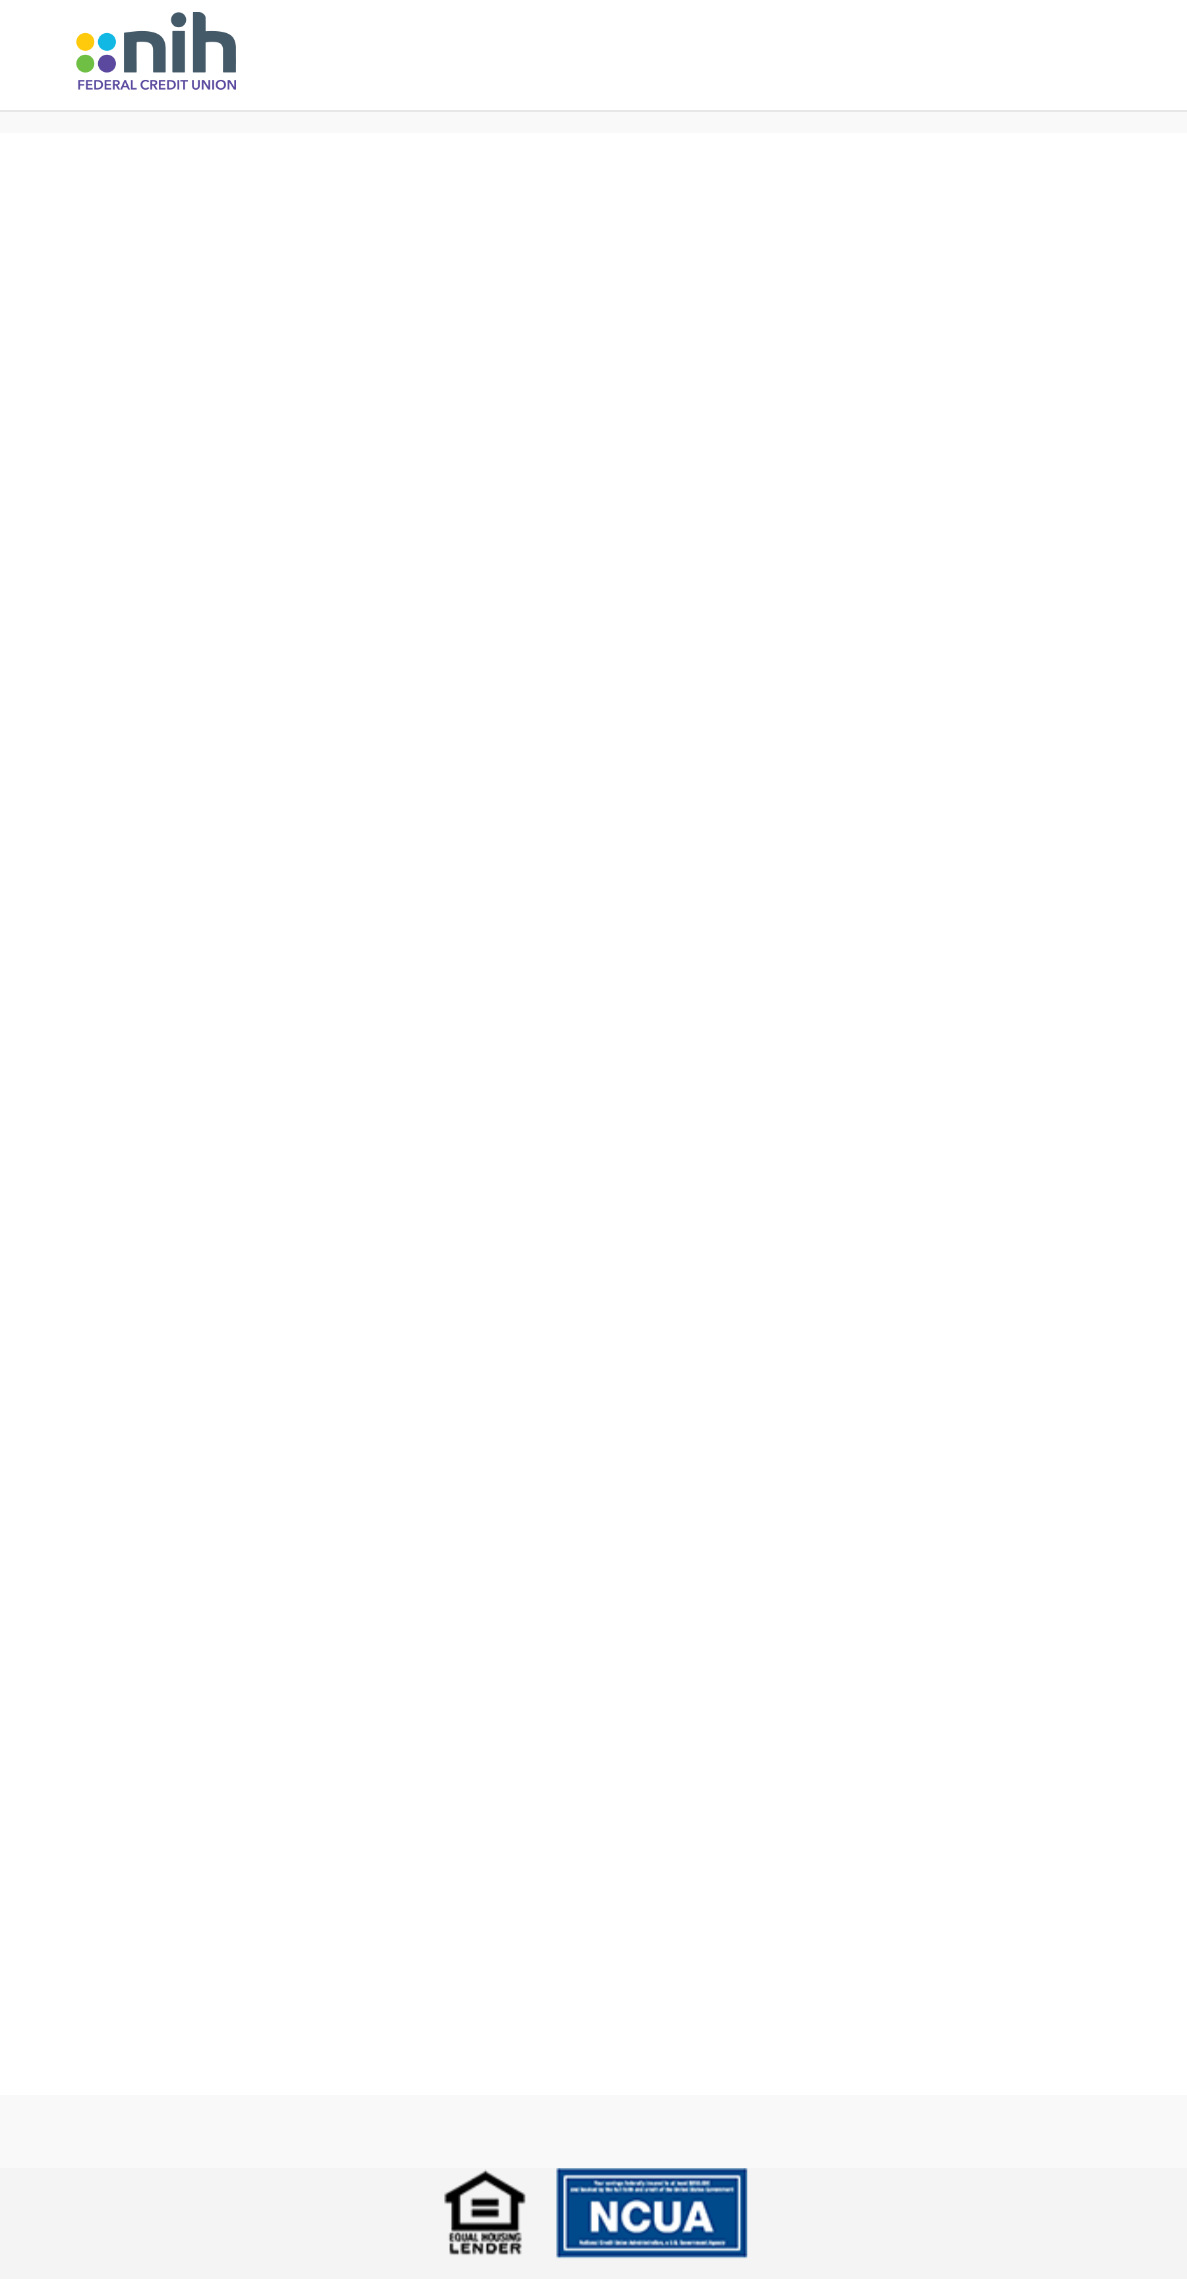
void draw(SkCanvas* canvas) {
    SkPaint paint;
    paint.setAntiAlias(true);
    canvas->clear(0xFFF9F9F9);
    paint.setColor(0xFFFFFFFF);
    canvas->drawRect(SkRect::MakeXYWH(0, 0, 1187, 110), paint);
    paint.setColor(0xFFE7E7E7);
    canvas->drawRect(SkRect::MakeXYWH(0, 110, 1187, 2), paint);
    canvas->drawImageRect(SkImages::DeferredFromEncodedData(SkData::MakeFromFileName("img1.png")), SkRect::MakeXYWH(76, 12, 160, 78), SkSamplingOptions());
    paint.setColor(0xFFFFFFFF);
    canvas->drawRect(SkRect::MakeXYWH(0, 133, 1187, 1962), paint);
    paint.setColor(0xFFF4F4F4);
    canvas->drawRect(SkRect::MakeXYWH(0, 2168, 1187, 111), paint);
    canvas->drawImageRect(SkImages::DeferredFromEncodedData(SkData::MakeFromFileName("img2.png")), SkRect::MakeXYWH(444, 2169, 82, 87), SkSamplingOptions());
    canvas->drawImageRect(SkImages::DeferredFromEncodedData(SkData::MakeFromFileName("img3.png")), SkRect::MakeXYWH(556, 2168, 192, 91), SkSamplingOptions());
}
